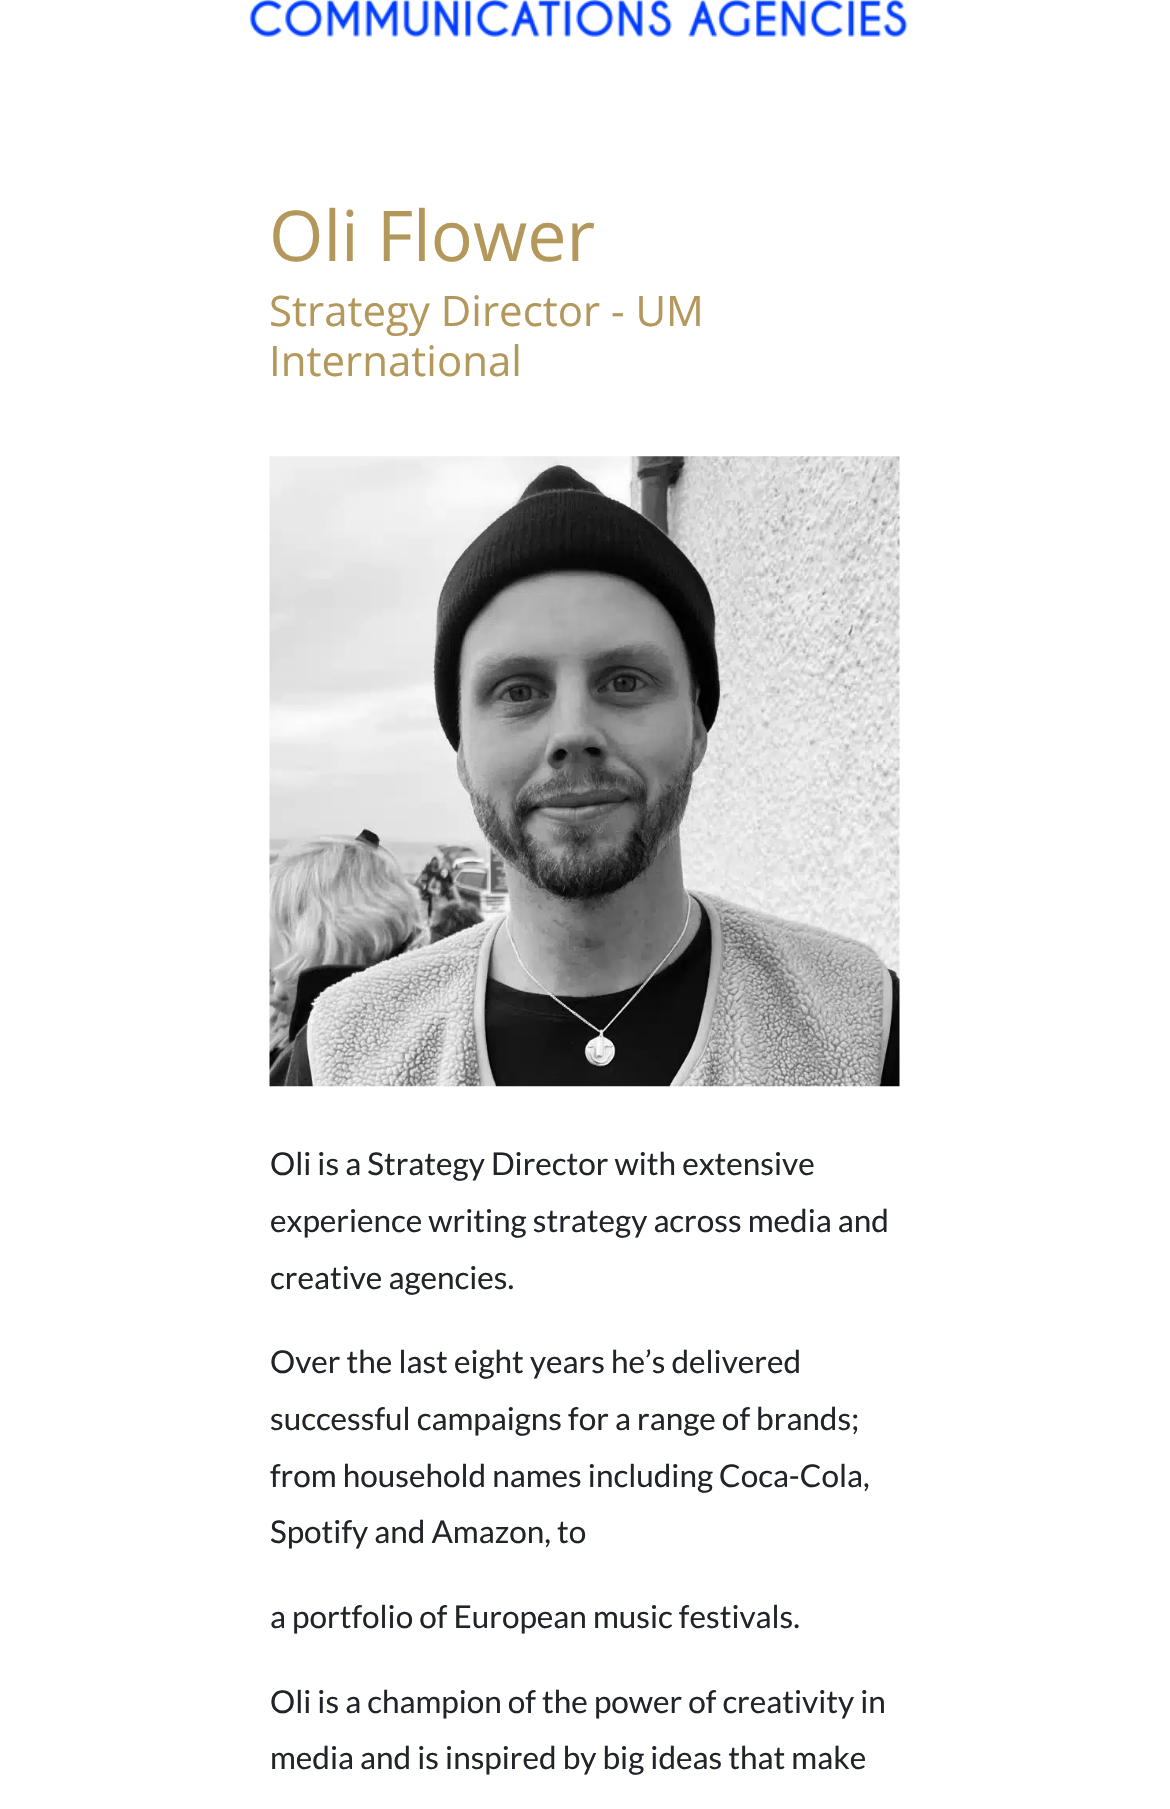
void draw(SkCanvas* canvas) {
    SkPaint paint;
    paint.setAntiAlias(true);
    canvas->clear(0xFFFFFFFF);
    canvas->drawImageRect(SkImages::DeferredFromEncodedData(SkData::MakeFromFileName("img1.png")), SkRect::MakeXYWH(249, 0, 659, 37), SkSamplingOptions());
    SkFont font1(fontMgr->matchFamilyStyle("Open Sans", SkFontStyle::Normal()), 70);
    font1.setSubpixel(true);
    paint.setColor(0xFFB4975A);
    canvas->drawString("Oli Flower", 269, 261, font1, paint);
    SkFont font2(fontMgr->matchFamilyStyle("Open Sans", SkFontStyle::Normal()), 42);
    font2.setSubpixel(true);
    canvas->drawString("Strategy Director - UM", 269, 326, font2, paint);
    canvas->drawString("International", 269, 376, font2, paint);
    canvas->drawImageRect(SkImages::DeferredFromEncodedData(SkData::MakeFromFileName("img2.png")), SkRect::MakeXYWH(269, 456, 631, 631), SkSamplingOptions());
    SkFont font3(fontMgr->matchFamilyStyle("Lato", SkFontStyle::Normal()), 31.5f);
    font3.setSubpixel(true);
    paint.setColor(0xFF212529);
    canvas->drawString("Oli is a Strategy Director with extensive", 270, 1175, font3, paint);
    canvas->drawString("experience writing strategy across media and", 270, 1232, font3, paint);
    canvas->drawString("creative agencies.", 270, 1289, font3, paint);
    canvas->drawString("Over the last eight years he’s delivered", 270, 1373, font3, paint);
    canvas->drawString("successful campaigns for a range of brands;", 270, 1430, font3, paint);
    canvas->drawString("from household names including Coca-Cola,", 270, 1487, font3, paint);
    canvas->drawString("Spotify and Amazon, to", 270, 1543, font3, paint);
    canvas->drawString("a portfolio of European music festivals.", 270, 1628, font3, paint);
    canvas->drawString("Oli is a champion of the power of creativity in", 270, 1713, font3, paint);
    canvas->drawString("media and is inspired by big ideas that make", 270, 1769, font3, paint);
}
